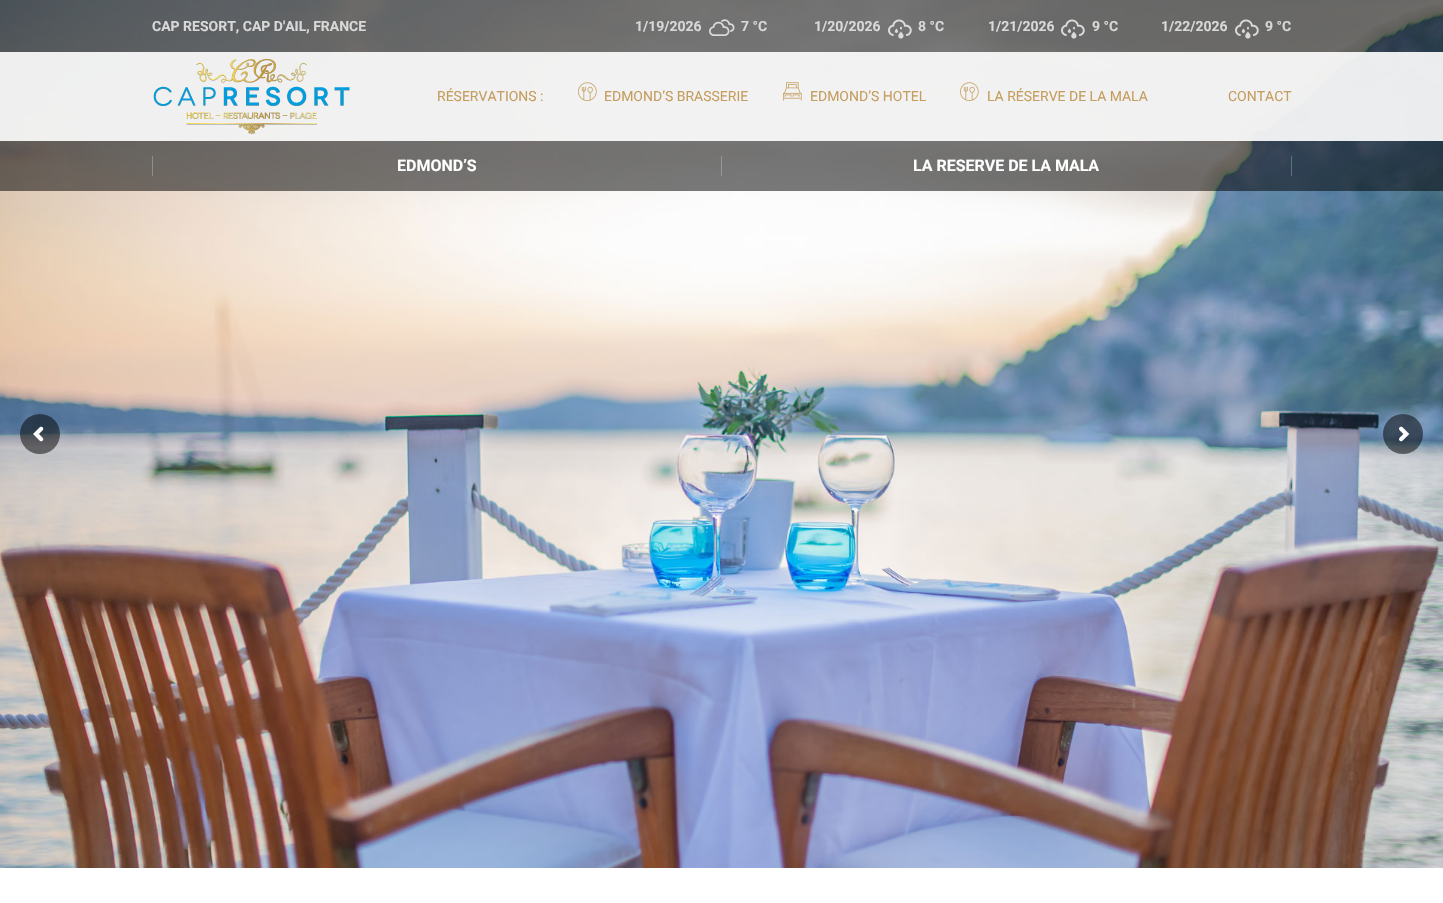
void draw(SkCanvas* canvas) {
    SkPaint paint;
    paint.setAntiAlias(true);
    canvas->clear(0xFFFFFFFF);
    canvas->drawImageRect(SkImages::DeferredFromEncodedData(SkData::MakeFromFileName("img1.png")), SkRect::MakeXYWH(0, 0, 1443, 868), SkSamplingOptions());
    paint.setColor(0x80000000);
    canvas->drawCircle(40, 434, 20, paint);
    canvas->drawImageRect(SkImages::DeferredFromEncodedData(SkData::MakeFromFileName("img2.png")), SkRect::MakeXYWH(33, 426, 11, 16), SkSamplingOptions());
    canvas->drawCircle(1403, 434, 20, paint);
    canvas->drawImageRect(SkImages::DeferredFromEncodedData(SkData::MakeFromFileName("img3.png")), SkRect::MakeXYWH(1399, 426, 11, 16), SkSamplingOptions());
    paint.setColor(0x85000000);
    canvas->drawRect(SkRect::MakeXYWH(0, 0, 1443, 191), paint);
    SkFont font1(fontMgr->matchFamilyStyle("Roboto", SkFontStyle::Bold()), 14);
    font1.setSubpixel(true);
    paint.setColor(0xFFD8D8D8);
    canvas->drawString("CAP RESORT, CAP D'AIL, FRANCE", 152, 31, font1, paint);
    canvas->drawString("1/19/2026", 635, 31, font1, paint);
    canvas->drawImageRect(SkImages::DeferredFromEncodedData(SkData::MakeFromFileName("img4.png")), SkRect::MakeXYWH(709, 19, 26, 17), SkSamplingOptions());
    canvas->drawString("7 °C", 741, 31, font1, paint);
    canvas->drawString("1/20/2026", 814, 31, font1, paint);
    canvas->drawImageRect(SkImages::DeferredFromEncodedData(SkData::MakeFromFileName("img5.png")), SkRect::MakeXYWH(888, 19, 24, 20), SkSamplingOptions());
    canvas->drawString("8 °", 918, 31, font1, paint);
    canvas->drawString("C", 935, 31, font1, paint);
    canvas->drawString("1/21/2026", 988, 31, font1, paint);
    canvas->drawImageRect(SkImages::DeferredFromEncodedData(SkData::MakeFromFileName("img6.png")), SkRect::MakeXYWH(1061, 19, 24, 20), SkSamplingOptions());
    canvas->drawString("9 °C", 1092, 31, font1, paint);
    canvas->drawString("1/22/2026", 1161, 31, font1, paint);
    canvas->drawImageRect(SkImages::DeferredFromEncodedData(SkData::MakeFromFileName("img7.png")), SkRect::MakeXYWH(1235, 19, 24, 20), SkSamplingOptions());
    canvas->drawString("9 °C", 1265, 31, font1, paint);
    paint.setColor(0xE6FFFFFF);
    canvas->drawRect(SkRect::MakeXYWH(0, 52, 1443, 89), paint);
    canvas->drawImageRect(SkImages::DeferredFromEncodedData(SkData::MakeFromFileName("img8.png")), SkRect::MakeXYWH(153, 59, 197, 76), SkSamplingOptions());
    SkFont font2(fontMgr->matchFamilyStyle("Roboto", SkFontStyle::Normal()), 14);
    font2.setSubpixel(true);
    paint.setColor(0xFFC59D5F);
    canvas->drawString("RÉSERVATIONS :", 437, 101, font2, paint);
    canvas->drawImageRect(SkImages::DeferredFromEncodedData(SkData::MakeFromFileName("img9.png")), SkRect::MakeXYWH(578, 82, 19, 19), SkSamplingOptions());
    canvas->drawString("EDMOND’S BRASSERIE", 604, 101, font2, paint);
    canvas->drawImageRect(SkImages::DeferredFromEncodedData(SkData::MakeFromFileName("img10.png")), SkRect::MakeXYWH(783, 82, 19, 19), SkSamplingOptions());
    canvas->drawString("EDMOND’S HOTEL", 810, 101, font2, paint);
    canvas->drawImageRect(SkImages::DeferredFromEncodedData(SkData::MakeFromFileName("img11.png")), SkRect::MakeXYWH(960, 82, 19, 19), SkSamplingOptions());
    canvas->drawString("LA RÉSERVE DE LA MALA", 987, 101, font2, paint);
    canvas->drawString("CONTACT", 1228, 101, font2, paint);
    paint.setColor(0x40FFFFFF);
    canvas->drawRect(SkRect::MakeXYWH(721, 156, 1, 20), paint);
    canvas->drawRect(SkRect::MakeXYWH(152, 156, 1, 20), paint);
    SkFont font3(fontMgr->matchFamilyStyle("Roboto", SkFontStyle::Bold()), 16);
    font3.setSubpixel(true);
    paint.setColor(0xFFFFFFFF);
    canvas->drawString("EDMOND’S", 397, 171, font3, paint);
    paint.setColor(0xFF63707E);
    canvas->drawRect(SkRect::MakeXYWH(1291, 156, 1, 20), paint);
    paint.setColor(0xFFFFFFFF);
    canvas->drawString("LA RESERVE DE LA MALA", 913, 171, font3, paint);
}
